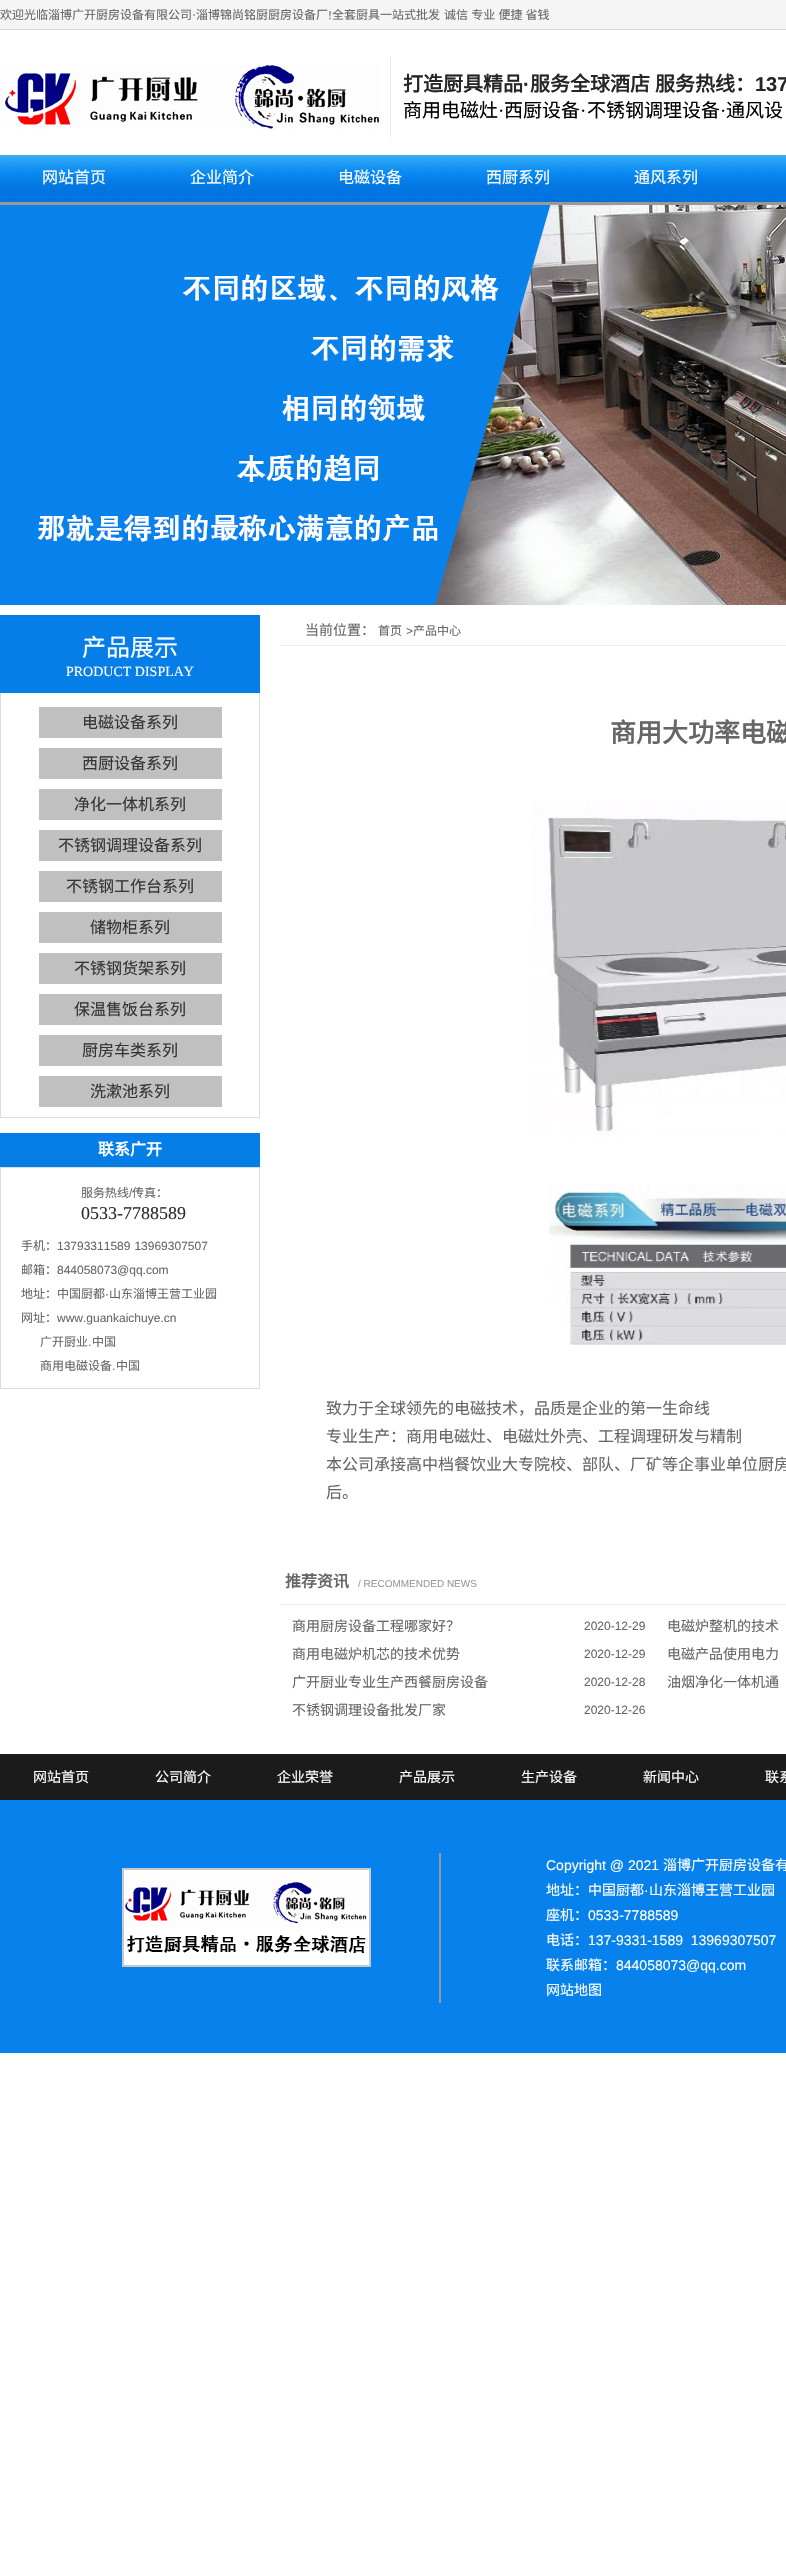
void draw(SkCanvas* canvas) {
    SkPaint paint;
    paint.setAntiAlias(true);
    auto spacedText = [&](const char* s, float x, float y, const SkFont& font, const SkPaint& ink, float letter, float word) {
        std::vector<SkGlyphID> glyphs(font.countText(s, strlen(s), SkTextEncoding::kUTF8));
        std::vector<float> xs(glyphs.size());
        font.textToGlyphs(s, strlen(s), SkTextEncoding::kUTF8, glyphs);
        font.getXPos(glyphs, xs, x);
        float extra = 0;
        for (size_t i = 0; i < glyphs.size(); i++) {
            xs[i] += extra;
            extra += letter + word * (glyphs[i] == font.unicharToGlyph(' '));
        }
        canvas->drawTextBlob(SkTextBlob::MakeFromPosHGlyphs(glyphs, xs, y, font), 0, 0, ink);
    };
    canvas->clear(0xFFFFFFFF);
    canvas->drawImageRect(SkImages::DeferredFromEncodedData(SkData::MakeFromFileName("img1.png")), SkRect::MakeXYWH(0, 0, 786, 202), SkSamplingOptions());
    paint.setColor(0xFF999999);
    canvas->drawRect(SkRect::MakeXYWH(0, 202, 786, 3), paint);
    SkFont font1(fontMgr->matchFamilyStyle("Noto Sans CJK SC", SkFontStyle::Normal()), 12);
    font1.setSubpixel(true);
    paint.setColor(0xFF666666);
    canvas->drawString("欢迎光临淄博广开厨房设备有限公司", 0, 19, font1, paint);
    SkFont font2(fontMgr->matchFamilyStyle("Liberation Serif", SkFontStyle::Normal()), 12);
    font2.setSubpixel(true);
    canvas->drawString("·", 192, 19, font2, paint);
    canvas->drawString("淄博锦尚铭厨厨房设备厂", 196, 19, font1, paint);
    canvas->drawString("!", 328, 19, font2, paint);
    canvas->drawString("全套厨具一站式批发", 332, 19, font1, paint);
    spacedText("诚信 专业 便捷 省钱", 444, 19, font1, paint, 0, 0.5f);
    canvas->drawImageRect(SkImages::DeferredFromEncodedData(SkData::MakeFromFileName("img2.png")), SkRect::MakeXYWH(0, 65, 379, 64), SkSamplingOptions());
    paint.setColor(0xFFE7E7E7);
    canvas->drawRect(SkRect::MakeXYWH(390, 57, 1, 80), paint);
    SkFont font3(fontMgr->matchFamilyStyle("Noto Sans CJK SC", SkFontStyle::Bold()), 20);
    font3.setSubpixel(true);
    paint.setColor(0xFF262626);
    canvas->drawString("打造厨具精品", 403, 91, font3, paint);
    SkFont font4(fontMgr->matchFamilyStyle("Liberation Sans", SkFontStyle::Bold()), 20);
    font4.setSubpixel(true);
    canvas->drawString("·", 523, 91, font4, paint);
    canvas->drawString("服务全球酒店", 530, 91, font3, paint);
    canvas->drawString("服务热线：", 655, 91, font3, paint);
    canvas->drawString("137", 755, 91, font4, paint);
    SkFont font5(fontMgr->matchFamilyStyle("Noto Sans CJK SC", SkFontStyle::Normal()), 19);
    font5.setSubpixel(true);
    paint.setColor(0xFF000000);
    canvas->drawString("商用电磁灶", 403, 117, font5, paint);
    SkFont font6(fontMgr->matchFamilyStyle("Liberation Serif", SkFontStyle::Normal()), 19);
    font6.setSubpixel(true);
    canvas->drawString("·", 498, 117, font6, paint);
    canvas->drawString("西厨设备", 504, 117, font5, paint);
    canvas->drawString("·", 580, 117, font6, paint);
    canvas->drawString("不锈钢调理设备", 587, 117, font5, paint);
    canvas->drawString("·", 720, 117, font6, paint);
    canvas->drawString("通风设", 726, 117, font5, paint);
    SkFont font7(fontMgr->matchFamilyStyle("Noto Sans CJK SC", SkFontStyle::Normal()), 16);
    font7.setSubpixel(true);
    paint.setColor(0xFFFFFFFF);
    canvas->drawString("网站首页", 42, 183, font7, paint);
    canvas->drawString("企业简介", 190, 183, font7, paint);
    canvas->drawString("电磁设备", 338, 183, font7, paint);
    canvas->drawString("西厨系列", 486, 183, font7, paint);
    canvas->drawString("通风系列", 634, 183, font7, paint);
    canvas->drawImageRect(SkImages::DeferredFromEncodedData(SkData::MakeFromFileName("img3.png")), SkRect::MakeXYWH(0, 205, 786, 400), SkSamplingOptions());
    paint.setColor(0xFF057EE8);
    canvas->drawRect(SkRect::MakeXYWH(0, 615, 260, 78), paint);
    SkFont font8(fontMgr->matchFamilyStyle("Noto Sans CJK SC", SkFontStyle::Normal()), 24);
    font8.setSubpixel(true);
    paint.setColor(0xFFFFFFFF);
    canvas->drawString("产品展示", 82, 656, font8, paint);
    SkFont font9(fontMgr->matchFamilyStyle("Liberation Serif", SkFontStyle::Normal()), 14);
    font9.setSubpixel(true);
    canvas->drawString("PRODUCT DISPLAY", 66, 676, font9, paint);
    paint.setColor(0xFFDDDDDD);
    canvas->drawRect(SkRect::MakeXYWH(259, 693, 1, 425), paint);
    canvas->drawRect(SkRect::MakeXYWH(0, 1117, 260, 1), paint);
    canvas->drawRect(SkRect::MakeXYWH(0, 693, 1, 425), paint);
    paint.setColor(0xFFC0C0C0);
    canvas->drawRect(SkRect::MakeXYWH(39, 707, 183, 31), paint);
    paint.setColor(0xFF333333);
    canvas->drawString("电磁设备系列", 82, 728, font7, paint);
    paint.setColor(0xFFC0C0C0);
    canvas->drawRect(SkRect::MakeXYWH(39, 748, 183, 31), paint);
    paint.setColor(0xFF333333);
    canvas->drawString("西厨设备系列", 82, 769, font7, paint);
    paint.setColor(0xFFC0C0C0);
    canvas->drawRect(SkRect::MakeXYWH(39, 789, 183, 31), paint);
    paint.setColor(0xFF333333);
    canvas->drawString("净化一体机系列", 74, 810, font7, paint);
    paint.setColor(0xFFC0C0C0);
    canvas->drawRect(SkRect::MakeXYWH(39, 830, 183, 31), paint);
    paint.setColor(0xFF333333);
    canvas->drawString("不锈钢调理设备系列", 58, 851, font7, paint);
    paint.setColor(0xFFC0C0C0);
    canvas->drawRect(SkRect::MakeXYWH(39, 871, 183, 31), paint);
    paint.setColor(0xFF333333);
    canvas->drawString("不锈钢工作台系列", 66, 892, font7, paint);
    paint.setColor(0xFFC0C0C0);
    canvas->drawRect(SkRect::MakeXYWH(39, 912, 183, 31), paint);
    paint.setColor(0xFF333333);
    canvas->drawString("储物柜系列", 90, 933, font7, paint);
    paint.setColor(0xFFC0C0C0);
    canvas->drawRect(SkRect::MakeXYWH(39, 953, 183, 31), paint);
    paint.setColor(0xFF333333);
    canvas->drawString("不锈钢货架系列", 74, 974, font7, paint);
    paint.setColor(0xFFC0C0C0);
    canvas->drawRect(SkRect::MakeXYWH(39, 994, 183, 31), paint);
    paint.setColor(0xFF333333);
    canvas->drawString("保温售饭台系列", 74, 1015, font7, paint);
    paint.setColor(0xFFC0C0C0);
    canvas->drawRect(SkRect::MakeXYWH(39, 1035, 183, 31), paint);
    paint.setColor(0xFF333333);
    canvas->drawString("厨房车类系列", 82, 1056, font7, paint);
    paint.setColor(0xFFC0C0C0);
    canvas->drawRect(SkRect::MakeXYWH(39, 1076, 183, 31), paint);
    paint.setColor(0xFF333333);
    canvas->drawString("洗漱池系列", 90, 1097, font7, paint);
    paint.setColor(0xFF057EE8);
    canvas->drawRect(SkRect::MakeXYWH(0, 1133, 260, 34), paint);
    SkFont font10(fontMgr->matchFamilyStyle("Noto Sans CJK SC", SkFontStyle::Bold()), 16);
    font10.setSubpixel(true);
    paint.setColor(0xFFFFFFFF);
    canvas->drawString("联系广开", 98, 1155, font10, paint);
    paint.setStyle(SkPaint::kStroke_Style);
    paint.setStrokeWidth(1);
    paint.setColor(0xFFDDDDDD);
    canvas->drawRect(SkRect::MakeXYWH(0.5f, 1167.5f, 259, 221), paint);
    paint.setStyle(SkPaint::kFill_Style);
    paint.setColor(0xFF666666);
    canvas->drawString("服务热线", 81, 1197, font1, paint);
    SkFont font11(fontMgr->matchFamilyStyle("Liberation Sans", SkFontStyle::Normal()), 12);
    font11.setSubpixel(true);
    canvas->drawString("/", 129, 1197, font11, paint);
    canvas->drawString("传真：", 132, 1197, font1, paint);
    SkFont font12(fontMgr->matchFamilyStyle("Liberation Serif", SkFontStyle::Normal()), 18);
    font12.setSubpixel(true);
    paint.setColor(0xFF282B33);
    canvas->drawString("0533-7788589", 81, 1219, font12, paint);
    paint.setColor(0xFF666666);
    canvas->drawString("手机：", 21, 1250, font1, paint);
    spacedText("13793311589   13969307507", 57, 1250, font11, paint, 0, -2);
    canvas->drawString("邮箱：", 21, 1274, font1, paint);
    canvas->drawString("844058073@qq.com", 57, 1274, font11, paint);
    canvas->drawString("地址：中国厨都", 21, 1298, font1, paint);
    canvas->drawString("·", 105, 1298, font11, paint);
    canvas->drawString("山东淄博王营工业园", 109, 1298, font1, paint);
    canvas->drawString("网址：", 21, 1322, font1, paint);
    canvas->drawString("www.guankaichuye.cn", 57, 1322, font11, paint);
    canvas->drawString("广开厨业", 40, 1346, font1, paint);
    canvas->drawString(".", 88, 1346, font11, paint);
    canvas->drawString("中国", 92, 1346, font1, paint);
    canvas->drawString("商用电磁设备", 40, 1370, font1, paint);
    canvas->drawString(".", 112, 1370, font11, paint);
    canvas->drawString("中国", 116, 1370, font1, paint);
    paint.setColor(0xFFECECEC);
    canvas->drawRect(SkRect::MakeXYWH(280, 645, 506, 1), paint);
    SkFont font13(fontMgr->matchFamilyStyle("Noto Sans CJK SC", SkFontStyle::Normal()), 14);
    font13.setSubpixel(true);
    paint.setColor(0xFF666666);
    canvas->drawString("当前位置：", 305, 635, font13, paint);
    canvas->drawString("首页", 378, 635, font1, paint);
    canvas->drawString(">", 406, 635, font11, paint);
    canvas->drawString("产品中心", 413, 635, font1, paint);
    SkFont font14(fontMgr->matchFamilyStyle("Noto Sans CJK SC", SkFontStyle::Bold()), 26);
    font14.setSubpixel(true);
    canvas->drawString("商用大功率电磁", 610, 742, font14, paint);
    canvas->drawImageRect(SkImages::DeferredFromEncodedData(SkData::MakeFromFileName("img4.png")), SkRect::MakeXYWH(532, 801, 254, 336), SkSamplingOptions());
    canvas->drawImageRect(SkImages::DeferredFromEncodedData(SkData::MakeFromFileName("img5.png")), SkRect::MakeXYWH(549, 1184, 237, 161), SkSamplingOptions());
    canvas->drawString("致力于全球领先的电磁技术，品质是企业的第一生命线", 326, 1414, font7, paint);
    canvas->drawString("专业生产：商用电磁灶、电磁灶外壳、工程调理研发与精制", 326, 1442, font7, paint);
    canvas->drawString("本公司承接高中档餐饮业大专院校、部队、厂矿等企事业单位厨房", 326, 1470, font7, paint);
    canvas->drawString("后。", 326, 1498, font7, paint);
    canvas->drawString("推荐资讯", 285, 1587, font10, paint);
    SkFont font15(fontMgr->matchFamilyStyle("Liberation Sans", SkFontStyle::Normal()), 10);
    font15.setSubpixel(true);
    paint.setColor(0xFF999999);
    canvas->drawString("/ RECOMMENDED NEWS", 358, 1587, font15, paint);
    paint.setColor(0xFFECECEC);
    canvas->drawRect(SkRect::MakeXYWH(280, 1604, 506, 1), paint);
    paint.setColor(0xFF666666);
    canvas->drawString("商用厨房设备工程哪家好？", 292, 1631, font13, paint);
    canvas->drawString("2020-12-29", 584, 1630, font11, paint);
    canvas->drawString("电磁炉整机的技术", 667, 1631, font13, paint);
    canvas->drawString("商用电磁炉机芯的技术优势", 292, 1659, font13, paint);
    canvas->drawString("2020-12-29", 584, 1658, font11, paint);
    canvas->drawString("电磁产品使用电力", 667, 1659, font13, paint);
    canvas->drawString("广开厨业专业生产西餐厨房设备", 292, 1687, font13, paint);
    canvas->drawString("2020-12-28", 584, 1686, font11, paint);
    canvas->drawString("油烟净化一体机通", 667, 1687, font13, paint);
    canvas->drawString("不锈钢调理设备批发厂家", 292, 1715, font13, paint);
    canvas->drawString("2020-12-26", 584, 1714, font11, paint);
    paint.setColor(0xFF1B1B1B);
    canvas->drawRect(SkRect::MakeXYWH(0, 1754, 786, 46), paint);
    paint.setColor(0xFFFFFFFF);
    canvas->drawString("网站首页", 33, 1782, font13, paint);
    canvas->drawString("公司简介", 155, 1782, font13, paint);
    canvas->drawString("企业荣誉", 277, 1782, font13, paint);
    canvas->drawString("产品展示", 399, 1782, font13, paint);
    canvas->drawString("生产设备", 521, 1782, font13, paint);
    canvas->drawString("新闻中心", 643, 1782, font13, paint);
    canvas->drawString("联系", 765, 1782, font13, paint);
    paint.setColor(0xFF0781EB);
    canvas->drawRect(SkRect::MakeXYWH(0, 1800, 786, 253), paint);
    canvas->drawImageRect(SkImages::DeferredFromEncodedData(SkData::MakeFromFileName("img6.png")), SkRect::MakeXYWH(122, 1868, 249, 99), SkSamplingOptions());
    paint.setColor(0xFF999999);
    canvas->drawRect(SkRect::MakeXYWH(439, 1853, 2, 150), paint);
    SkFont font16(fontMgr->matchFamilyStyle("Liberation Sans", SkFontStyle::Normal()), 14);
    font16.setSubpixel(true);
    paint.setColor(0xFFFFFFFF);
    canvas->drawString("Copyright @ 2021", 546, 1870, font16, paint);
    canvas->drawString("淄博广开厨房设备有", 663, 1870, font13, paint);
    canvas->drawString("地址：中国厨都", 546, 1895, font13, paint);
    canvas->drawString("·", 644, 1895, font16, paint);
    canvas->drawString("山东淄博王营工业园", 649, 1895, font13, paint);
    canvas->drawString("座机：", 546, 1920, font13, paint);
    canvas->drawString("0533-7788589", 588, 1920, font16, paint);
    canvas->drawString("电话：", 546, 1945, font13, paint);
    canvas->drawString("137-9331-1589  13969307507", 588, 1945, font16, paint);
    canvas->drawString("联系邮箱：", 546, 1970, font13, paint);
    canvas->drawString("844058073@qq.com", 616, 1970, font16, paint);
    canvas->drawString("网站地图", 546, 1995, font13, paint);
}
